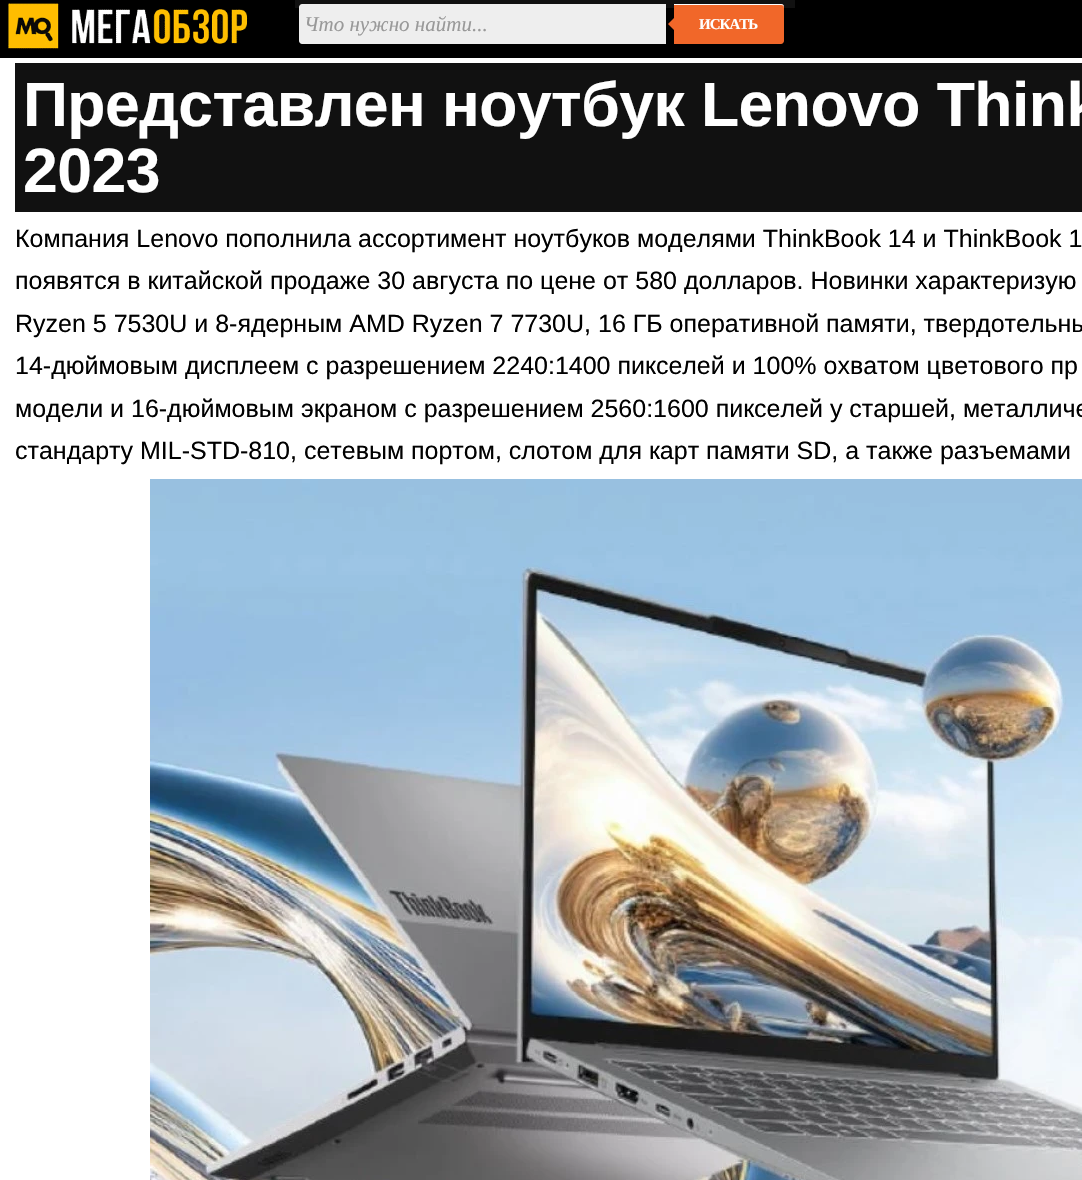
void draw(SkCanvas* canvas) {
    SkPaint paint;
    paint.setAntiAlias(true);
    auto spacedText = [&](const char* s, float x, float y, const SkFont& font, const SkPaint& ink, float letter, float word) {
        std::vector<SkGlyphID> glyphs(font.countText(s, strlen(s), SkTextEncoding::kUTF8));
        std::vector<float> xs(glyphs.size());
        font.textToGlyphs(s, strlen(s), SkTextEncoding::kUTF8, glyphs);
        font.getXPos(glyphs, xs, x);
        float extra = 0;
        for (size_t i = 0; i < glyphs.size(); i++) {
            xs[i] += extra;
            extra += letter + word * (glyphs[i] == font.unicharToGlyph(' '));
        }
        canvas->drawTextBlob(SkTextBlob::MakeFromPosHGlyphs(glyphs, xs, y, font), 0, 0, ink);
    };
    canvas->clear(0xFFFFFFFF);
    paint.setColor(0xFF000000);
    canvas->drawRect(SkRect::MakeXYWH(0, 0, 1082, 58), paint);
    canvas->drawImageRect(SkImages::DeferredFromEncodedData(SkData::MakeFromFileName("img1.png")), SkRect::MakeXYWH(8, 3, 240, 46), SkSamplingOptions());
    paint.setColor(0xFF111111);
    canvas->drawRect(SkRect::MakeXYWH(295, 0, 500, 8), paint);
    paint.setColor(0xFFEEEEEE);
    canvas->drawPath(SkPathBuilder().moveTo(302, 4).lineTo(666, 4).lineTo(666, 44).lineTo(302, 44).cubicTo(300.5f, 44, 299, 42.5f, 299, 41).lineTo(299, 7).cubicTo(299, 5.5f, 300.5f, 4, 302, 4).close().detach(), paint);
    SkFont font1(fontMgr->matchFamilyStyle("Liberation Serif", SkFontStyle::Italic()), 21);
    font1.setSubpixel(true);
    paint.setColor(0xFF999999);
    canvas->drawString("Что нужно найти...", 304, 31, font1, paint);
    paint.setColor(0xFFF16729);
    canvas->drawPath(SkPathBuilder().moveTo(674, 4).lineTo(781, 4).cubicTo(782.5f, 4, 784, 5.5f, 784, 7).lineTo(784, 41).cubicTo(784, 42.5f, 782.5f, 44, 781, 44).lineTo(674, 44).close().detach(), paint);
    paint.setColor(0xFFFFFFFF);
    canvas->drawPath(SkPathBuilder().moveTo(674, 5).lineTo(781, 5).cubicTo(783, 5, 784, 6, 784, 8).lineTo(784, 7).cubicTo(784, 5, 783, 4, 781, 4).lineTo(674, 4).close().detach(), paint);
    paint.setColor(0xFFF16729);
    canvas->drawPath(SkPathBuilder().moveTo(676, 16).lineTo(676, 32).lineTo(668, 24).close().detach(), paint);
    SkFont font2(fontMgr->matchFamilyStyle("Liberation Serif", SkFontStyle::Bold()), 15);
    font2.setSubpixel(true);
    paint.setColor(0xFFFFFFFF);
    spacedText("ИСКАТЬ", 699, 29, font2, paint, -1, 0);
    paint.setColor(0xFF111111);
    canvas->drawRect(SkRect::MakeXYWH(15, 63, 1067, 149), paint);
    SkFont font3(fontMgr->matchFamilyStyle("Liberation Sans", SkFontStyle::Bold()), 62.5f);
    font3.setSubpixel(true);
    paint.setColor(0xFFFFFFFF);
    spacedText("Представлен ноутбук Lenovo Think", 23, 126, font3, paint, -0.55f, 0);
    spacedText("2023", 23, 192, font3, paint, -0.55f, 0);
    SkFont font4(fontMgr->matchFamilyStyle("Liberation Sans", SkFontStyle::Normal()), 25);
    font4.setSubpixel(true);
    paint.setColor(0xFF000000);
    canvas->drawString("Компания Lenovo пополнила ассортимент ноутбуков моделями ThinkBook 14 и ThinkBook 1", 15, 247, font4, paint);
    canvas->drawString("появятся в китайской продаже 30 августа по цене от 580 долларов. Новинки характеризую", 15, 289, font4, paint);
    canvas->drawString("Ryzen 5 7530U и 8-ядерным AMD Ryzen 7 7730U, 16 ГБ оперативной памяти, твердотельны", 15, 332, font4, paint);
    canvas->drawString("14-дюймовым дисплеем с разрешением 2240:1400 пикселей и 100% охватом цветового пр", 15, 374, font4, paint);
    canvas->drawString("модели и 16-дюймовым экраном с разрешением 2560:1600 пикселей у старшей, металличе", 15, 417, font4, paint);
    canvas->drawString("стандарту MIL-STD-810, сетевым портом, слотом для карт памяти SD, а также разъемами", 15, 459, font4, paint);
    canvas->drawImageRect(SkImages::DeferredFromEncodedData(SkData::MakeFromFileName("img2.png")), SkRect::MakeXYWH(150, 479, 932, 701), SkSamplingOptions());
}
